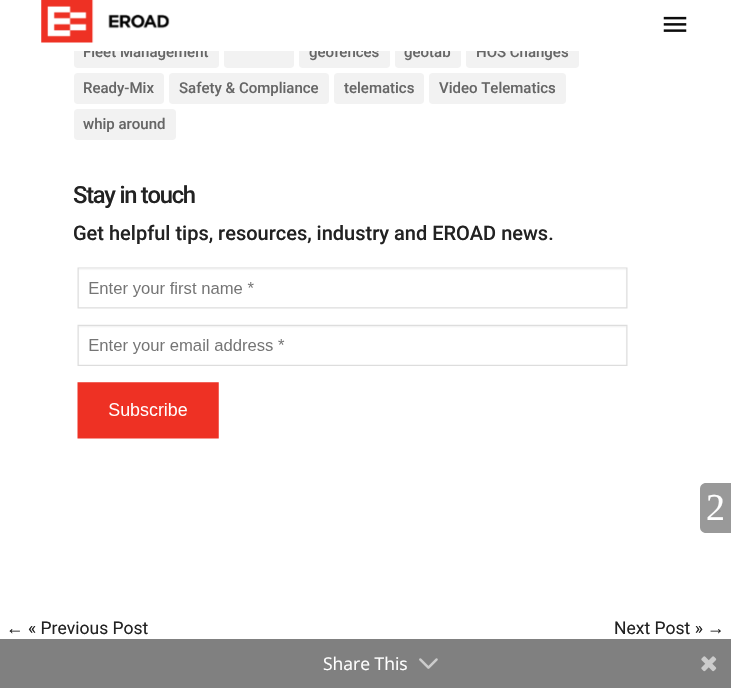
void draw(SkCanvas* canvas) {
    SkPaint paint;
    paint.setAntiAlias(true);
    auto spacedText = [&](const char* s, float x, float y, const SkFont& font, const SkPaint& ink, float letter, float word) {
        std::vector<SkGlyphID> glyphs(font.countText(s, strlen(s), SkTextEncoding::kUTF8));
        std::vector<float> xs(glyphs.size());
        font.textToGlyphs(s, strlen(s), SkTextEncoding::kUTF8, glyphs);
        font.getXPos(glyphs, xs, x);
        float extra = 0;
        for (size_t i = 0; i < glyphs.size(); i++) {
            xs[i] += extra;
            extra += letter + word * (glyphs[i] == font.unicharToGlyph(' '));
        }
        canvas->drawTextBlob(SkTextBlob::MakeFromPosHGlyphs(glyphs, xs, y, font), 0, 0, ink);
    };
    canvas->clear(0xFFFFFFFF);
    paint.setColor(0xFFF2F2F2);
    canvas->drawRoundRect(SkRect::MakeXYWH(74, 38, 145, 30), 4, 4, paint);
    SkFont font1(fontMgr->matchFamilyStyle("Roboto", SkFontStyle(500, SkFontStyle::kNormal_Width, SkFontStyle::kUpright_Slant)), 15);
    font1.setSubpixel(true);
    paint.setColor(0xFF666666);
    canvas->drawString("Fleet Management", 83, 57, font1, paint);
    paint.setColor(0xFFF2F2F2);
    canvas->drawRoundRect(SkRect::MakeXYWH(224, 38, 70, 30), 4, 4, paint);
    canvas->drawRoundRect(SkRect::MakeXYWH(299, 38, 91, 30), 4, 4, paint);
    paint.setColor(0xFF666666);
    canvas->drawString("geofences", 309, 57, font1, paint);
    paint.setColor(0xFFF2F2F2);
    canvas->drawRoundRect(SkRect::MakeXYWH(395, 38, 66, 30), 4, 4, paint);
    paint.setColor(0xFF666666);
    canvas->drawString("geotab", 404, 57, font1, paint);
    paint.setColor(0xFFF2F2F2);
    canvas->drawRoundRect(SkRect::MakeXYWH(466, 38, 113, 30), 4, 4, paint);
    paint.setColor(0xFF666666);
    canvas->drawString("HOS Changes", 476, 57, font1, paint);
    paint.setColor(0xFFFFFFFF);
    canvas->drawRect(SkRect::MakeXYWH(74, 38, 505, 13), paint);
    canvas->drawImageRect(SkImages::DeferredFromEncodedData(SkData::MakeFromFileName("img1.png")), SkRect::MakeXYWH(41, 0, 129, 43), SkSamplingOptions());
    canvas->drawImageRect(SkImages::DeferredFromEncodedData(SkData::MakeFromFileName("img2.png")), SkRect::MakeXYWH(663, 16, 24, 16), SkSamplingOptions());
    paint.setColor(0xFFF2F2F2);
    canvas->drawRoundRect(SkRect::MakeXYWH(74, 73, 90, 31), 4, 4, paint);
    paint.setColor(0xFF666666);
    canvas->drawString("Ready-Mix", 83, 93, font1, paint);
    paint.setColor(0xFFF2F2F2);
    canvas->drawRoundRect(SkRect::MakeXYWH(169, 73, 160, 31), 4, 4, paint);
    paint.setColor(0xFF666666);
    canvas->drawString("Safety & Compliance", 179, 93, font1, paint);
    paint.setColor(0xFFF2F2F2);
    canvas->drawRoundRect(SkRect::MakeXYWH(334, 73, 90, 31), 4, 4, paint);
    paint.setColor(0xFF666666);
    canvas->drawString("telematics", 344, 93, font1, paint);
    paint.setColor(0xFFF2F2F2);
    canvas->drawRoundRect(SkRect::MakeXYWH(429, 73, 137, 31), 4, 4, paint);
    paint.setColor(0xFF666666);
    canvas->drawString("Video Telematics", 439, 93, font1, paint);
    paint.setColor(0xFFF2F2F2);
    canvas->drawRoundRect(SkRect::MakeXYWH(74, 109, 102, 31), 4, 4, paint);
    paint.setColor(0xFF666666);
    canvas->drawString("whip around", 83, 129, font1, paint);
    SkFont font2(fontMgr->matchFamilyStyle("Roboto", SkFontStyle(500, SkFontStyle::kNormal_Width, SkFontStyle::kUpright_Slant)), 23.75f);
    font2.setSubpixel(true);
    paint.setColor(0xFF222222);
    spacedText("Stay in touch", 73, 203, font2, paint, -1.25f, 0);
    SkFont font3(fontMgr->matchFamilyStyle("Roboto", SkFontStyle(500, SkFontStyle::kNormal_Width, SkFontStyle::kUpright_Slant)), 20);
    font3.setSubpixel(true);
    canvas->drawString("Get helpful tips, resources, industry and EROAD news.", 73, 240, font3, paint);
    canvas->drawImageRect(SkImages::DeferredFromEncodedData(SkData::MakeFromFileName("img3.png")), SkRect::MakeXYWH(77, 267, 551, 172), SkSamplingOptions());
    SkFont font4(fontMgr->matchFamilyStyle("Liberation Sans", SkFontStyle::Normal()), 17.5f);
    font4.setSubpixel(true);
    canvas->drawString("←", 6, 634, font4, paint);
    SkFont font5(fontMgr->matchFamilyStyle("Roboto", SkFontStyle::Normal()), 17.5f);
    font5.setSubpixel(true);
    canvas->drawString("« Previous Post", 28, 634, font5, paint);
    canvas->drawString("Next Post »", 614, 634, font5, paint);
    canvas->drawString("→", 707, 634, font4, paint);
    paint.setColor(0xFF999999);
    canvas->drawPath(SkPathBuilder().moveTo(706, 483).lineTo(731, 483).lineTo(731, 533).lineTo(706, 533).cubicTo(702.5f, 533, 700, 530.5f, 700, 527).lineTo(700, 489).cubicTo(700, 485.5f, 702.5f, 483, 706, 483).close().detach(), paint);
    SkFont font6(fontMgr->matchFamilyStyle("Liberation Serif", SkFontStyle::Normal()), 38);
    font6.setSubpixel(true);
    paint.setColor(0xFFFFFFFF);
    canvas->drawString("2", 706, 520, font6, paint);
    paint.setColor(0xFF808080);
    canvas->drawRect(SkRect::MakeXYWH(0, 639, 731, 49), paint);
    SkFont font7(fontMgr->matchFamilyStyle("Open Sans", SkFontStyle::Normal()), 17.5f);
    font7.setSubpixel(true);
    paint.setColor(0xFFFFFFFF);
    canvas->drawString("Share This", 323, 670, font7, paint);
    canvas->drawImageRect(SkImages::DeferredFromEncodedData(SkData::MakeFromFileName("img4.png")), SkRect::MakeXYWH(419, 658, 19, 11), SkSamplingOptions());
    canvas->drawImageRect(SkImages::DeferredFromEncodedData(SkData::MakeFromFileName("img5.png")), SkRect::MakeXYWH(701, 656, 16, 16), SkSamplingOptions());
}
